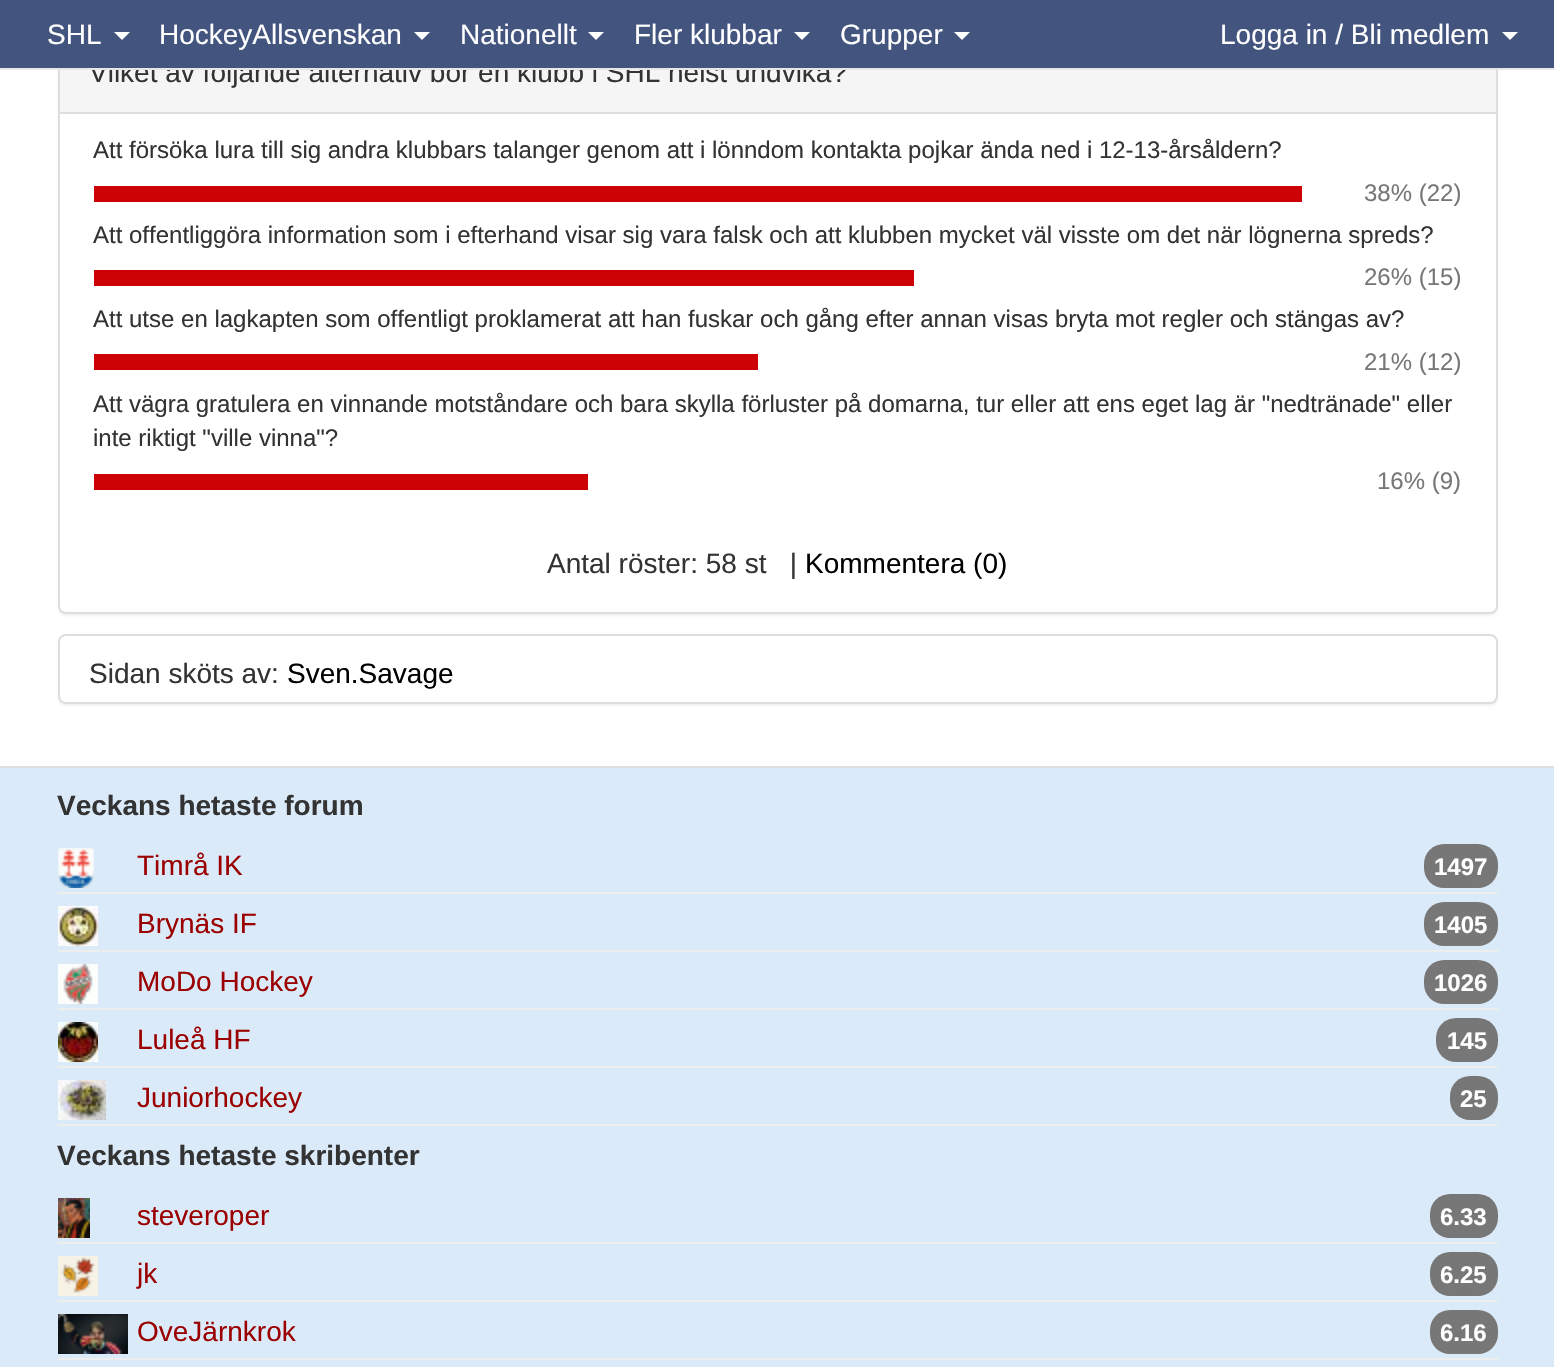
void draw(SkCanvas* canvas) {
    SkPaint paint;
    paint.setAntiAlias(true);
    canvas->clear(0xFFFFFFFF);
    paint.setColor(0x0D000000);
    paint.setMaskFilter(SkMaskFilter::MakeBlur(kNormal_SkBlurStyle, 1));
    canvas->drawRoundRect(SkRect::MakeXYWH(58, 32, 1440, 584), 8, 8, paint);
    paint.setMaskFilter(nullptr);
    paint.setColor(0xFFFFFFFF);
    canvas->drawRoundRect(SkRect::MakeXYWH(59, 31, 1438, 582), 7, 7, paint);
    paint.setStyle(SkPaint::kStroke_Style);
    paint.setStrokeWidth(2);
    paint.setColor(0xFFDDDDDD);
    canvas->drawRoundRect(SkRect::MakeXYWH(59, 31, 1438, 582), 7, 7, paint);
    paint.setStyle(SkPaint::kFill_Style);
    paint.setColor(0xFFF5F5F5);
    canvas->drawRect(SkRect::MakeXYWH(60, 70, 1436, 42), paint);
    SkFont font1(fontMgr->matchFamilyStyle("Liberation Sans", SkFontStyle::Normal()), 28);
    font1.setSubpixel(true);
    paint.setColor(0xFF333333);
    canvas->drawString("Vilket av följande alternativ bör en klubb i SHL helst undvika?", 89, 82, font1, paint);
    paint.setColor(0xFF43557F);
    canvas->drawRect(SkRect::MakeXYWH(0, 0, 1554, 68), paint);
    paint.setColor(0xFFE7E7E7);
    canvas->drawRect(SkRect::MakeXYWH(0, 68, 1554, 2), paint);
    paint.setColor(0xFFFFFFFF);
    canvas->drawString("SHL", 47, 44, font1, paint);
    canvas->drawPath(SkPathBuilder().moveTo(114, 32).lineTo(130, 32).lineTo(122, 40).close().detach(), paint);
    canvas->drawString("HockeyAllsvenskan", 159, 44, font1, paint);
    canvas->drawPath(SkPathBuilder().moveTo(414, 32).lineTo(430, 32).lineTo(422, 40).close().detach(), paint);
    canvas->drawString("Nationellt", 460, 44, font1, paint);
    canvas->drawPath(SkPathBuilder().moveTo(588, 32).lineTo(604, 32).lineTo(596, 40).close().detach(), paint);
    canvas->drawString("Fler klubbar", 634, 44, font1, paint);
    canvas->drawPath(SkPathBuilder().moveTo(794, 32).lineTo(810, 32).lineTo(802, 40).close().detach(), paint);
    canvas->drawString("Grupper", 840, 44, font1, paint);
    canvas->drawPath(SkPathBuilder().moveTo(954, 32).lineTo(970, 32).lineTo(962, 40).close().detach(), paint);
    canvas->drawString("Logga in / Bli medlem", 1220, 44, font1, paint);
    canvas->drawPath(SkPathBuilder().moveTo(1502, 32).lineTo(1518, 32).lineTo(1510, 40).close().detach(), paint);
    paint.setColor(0xFFDDDDDD);
    canvas->drawRect(SkRect::MakeXYWH(60, 112, 1436, 2), paint);
    SkFont font2(fontMgr->matchFamilyStyle("Liberation Sans", SkFontStyle::Normal()), 24);
    font2.setSubpixel(true);
    paint.setColor(0xFF333333);
    canvas->drawString("Att försöka lura till sig andra klubbars talanger genom att i lönndom kontakta pojkar ända ned i 12-13-årsåldern?", 93, 158, font2, paint);
    paint.setColor(0xFFCC0204);
    canvas->drawRect(SkRect::MakeXYWH(94, 186, 1208, 16), paint);
    paint.setColor(0xFF777777);
    canvas->drawString("38% (22)", 1364, 201, font2, paint);
    paint.setColor(0xFF333333);
    canvas->drawString("Att offentliggöra information som i efterhand visar sig vara falsk och att klubben mycket väl visste om det när lögnerna spreds?", 93, 243, font2, paint);
    paint.setColor(0xFFCC0204);
    canvas->drawRect(SkRect::MakeXYWH(94, 270, 820, 16), paint);
    paint.setColor(0xFF777777);
    canvas->drawString("26% (15)", 1364, 285, font2, paint);
    paint.setColor(0xFF333333);
    canvas->drawString("Att utse en lagkapten som offentligt proklamerat att han fuskar och gång efter annan visas bryta mot regler och stängas av?", 93, 327, font2, paint);
    paint.setColor(0xFFCC0204);
    canvas->drawRect(SkRect::MakeXYWH(94, 354, 664, 16), paint);
    paint.setColor(0xFF777777);
    canvas->drawString("21% (12)", 1364, 370, font2, paint);
    paint.setColor(0xFF333333);
    canvas->drawString("Att vägra gratulera en vinnande motståndare och bara skylla förluster på domarna, tur eller att ens eget lag är \"nedtränade\" eller", 93, 412, font2, paint);
    canvas->drawString("inte riktigt \"ville vinna\"?", 93, 446, font2, paint);
    paint.setColor(0xFFCC0204);
    canvas->drawRect(SkRect::MakeXYWH(94, 474, 494, 16), paint);
    paint.setColor(0xFF777777);
    canvas->drawString("16% (9)", 1377, 489, font2, paint);
    paint.setColor(0xFF333333);
    canvas->drawString("Antal röster: 58 st   |", 547, 573, font1, paint);
    paint.setColor(0xFF000000);
    canvas->drawString("Kommentera (0)", 805, 573, font1, paint);
    paint.setColor(0x0D000000);
    paint.setMaskFilter(SkMaskFilter::MakeBlur(kNormal_SkBlurStyle, 1));
    canvas->drawRoundRect(SkRect::MakeXYWH(58, 636, 1440, 70), 8, 8, paint);
    paint.setMaskFilter(nullptr);
    paint.setColor(0xFFFFFFFF);
    canvas->drawRoundRect(SkRect::MakeXYWH(59, 635, 1438, 68), 7, 7, paint);
    paint.setStyle(SkPaint::kStroke_Style);
    paint.setColor(0xFFDDDDDD);
    canvas->drawRoundRect(SkRect::MakeXYWH(59, 635, 1438, 68), 7, 7, paint);
    paint.setStyle(SkPaint::kFill_Style);
    paint.setColor(0xFF333333);
    canvas->drawString("Sidan sköts av:", 89, 683, font1, paint);
    paint.setColor(0xFF000000);
    canvas->drawString("Sven.Savage", 287, 683, font1, paint);
    paint.setColor(0xFFDBEAF9);
    canvas->drawRect(SkRect::MakeXYWH(0, 768, 1554, 599), paint);
    paint.setColor(0xFFDFDFDF);
    canvas->drawRect(SkRect::MakeXYWH(0, 766, 1554, 2), paint);
    SkFont font3(fontMgr->matchFamilyStyle("Liberation Sans", SkFontStyle::Bold()), 28);
    font3.setSubpixel(true);
    paint.setColor(0xFF333333);
    canvas->drawString("Veckans hetaste forum", 57, 815, font3, paint);
    canvas->drawImageRect(SkImages::DeferredFromEncodedData(SkData::MakeFromFileName("img1.png")), SkRect::MakeXYWH(58, 848, 36, 40), SkSamplingOptions());
    paint.setColor(0xFF9B0000);
    canvas->drawString("Timrå IK", 137, 875, font1, paint);
    paint.setColor(0xFF777777);
    canvas->drawRoundRect(SkRect::MakeXYWH(1424, 844, 74, 44), 20, 20, paint);
    SkFont font4(fontMgr->matchFamilyStyle("Liberation Sans", SkFontStyle::Bold()), 24);
    font4.setSubpixel(true);
    paint.setColor(0xFFFFFFFF);
    canvas->drawString("1497", 1434, 875, font4, paint);
    paint.setColor(0xFFEEEEEE);
    canvas->drawRect(SkRect::MakeXYWH(58, 892, 1440, 2), paint);
    canvas->drawImageRect(SkImages::DeferredFromEncodedData(SkData::MakeFromFileName("img2.png")), SkRect::MakeXYWH(58, 906, 40, 40), SkSamplingOptions());
    paint.setColor(0xFF9B0000);
    canvas->drawString("Brynäs IF", 137, 933, font1, paint);
    paint.setColor(0xFF777777);
    canvas->drawRoundRect(SkRect::MakeXYWH(1424, 902, 74, 44), 20, 20, paint);
    paint.setColor(0xFFFFFFFF);
    canvas->drawString("1405", 1434, 933, font4, paint);
    paint.setColor(0xFFEEEEEE);
    canvas->drawRect(SkRect::MakeXYWH(58, 950, 1440, 2), paint);
    canvas->drawImageRect(SkImages::DeferredFromEncodedData(SkData::MakeFromFileName("img3.png")), SkRect::MakeXYWH(58, 964, 40, 40), SkSamplingOptions());
    paint.setColor(0xFF9B0000);
    canvas->drawString("MoDo Hockey", 137, 991, font1, paint);
    paint.setColor(0xFF777777);
    canvas->drawRoundRect(SkRect::MakeXYWH(1424, 960, 74, 44), 20, 20, paint);
    paint.setColor(0xFFFFFFFF);
    canvas->drawString("1026", 1434, 991, font4, paint);
    paint.setColor(0xFFEEEEEE);
    canvas->drawRect(SkRect::MakeXYWH(58, 1008, 1440, 2), paint);
    canvas->drawImageRect(SkImages::DeferredFromEncodedData(SkData::MakeFromFileName("img4.png")), SkRect::MakeXYWH(58, 1022, 40, 40), SkSamplingOptions());
    paint.setColor(0xFF9B0000);
    canvas->drawString("Luleå HF", 137, 1049, font1, paint);
    paint.setColor(0xFF777777);
    canvas->drawRoundRect(SkRect::MakeXYWH(1436, 1018, 62, 44), 20, 20, paint);
    paint.setColor(0xFFFFFFFF);
    canvas->drawString("145", 1447, 1049, font4, paint);
    paint.setColor(0xFFEEEEEE);
    canvas->drawRect(SkRect::MakeXYWH(58, 1066, 1440, 2), paint);
    canvas->drawImageRect(SkImages::DeferredFromEncodedData(SkData::MakeFromFileName("img5.png")), SkRect::MakeXYWH(58, 1080, 48, 40), SkSamplingOptions());
    paint.setColor(0xFF9B0000);
    canvas->drawString("Juniorhockey", 137, 1107, font1, paint);
    paint.setColor(0xFF777777);
    canvas->drawRoundRect(SkRect::MakeXYWH(1450, 1076, 48, 44), 20, 20, paint);
    paint.setColor(0xFFFFFFFF);
    canvas->drawString("25", 1460, 1107, font4, paint);
    paint.setColor(0xFFEEEEEE);
    canvas->drawRect(SkRect::MakeXYWH(58, 1124, 1440, 2), paint);
    paint.setColor(0xFF333333);
    canvas->drawString("Veckans hetaste skribenter", 57, 1165, font3, paint);
    canvas->drawImageRect(SkImages::DeferredFromEncodedData(SkData::MakeFromFileName("img6.png")), SkRect::MakeXYWH(58, 1198, 32, 40), SkSamplingOptions());
    paint.setColor(0xFF9B0000);
    canvas->drawString("steveroper", 137, 1225, font1, paint);
    paint.setColor(0xFF777777);
    canvas->drawRoundRect(SkRect::MakeXYWH(1430, 1194, 68, 44), 20, 20, paint);
    paint.setColor(0xFFFFFFFF);
    canvas->drawString("6.33", 1440, 1225, font4, paint);
    paint.setColor(0xFFEEEEEE);
    canvas->drawRect(SkRect::MakeXYWH(58, 1242, 1440, 2), paint);
    canvas->drawImageRect(SkImages::DeferredFromEncodedData(SkData::MakeFromFileName("img7.png")), SkRect::MakeXYWH(58, 1256, 40, 40), SkSamplingOptions());
    paint.setColor(0xFF9B0000);
    canvas->drawString("jk", 137, 1283, font1, paint);
    paint.setColor(0xFF777777);
    canvas->drawRoundRect(SkRect::MakeXYWH(1430, 1252, 68, 44), 20, 20, paint);
    paint.setColor(0xFFFFFFFF);
    canvas->drawString("6.25", 1440, 1283, font4, paint);
    paint.setColor(0xFFEEEEEE);
    canvas->drawRect(SkRect::MakeXYWH(58, 1300, 1440, 2), paint);
    canvas->drawImageRect(SkImages::DeferredFromEncodedData(SkData::MakeFromFileName("img8.png")), SkRect::MakeXYWH(58, 1314, 70, 40), SkSamplingOptions());
    paint.setColor(0xFF9B0000);
    canvas->drawString("OveJärnkrok", 137, 1341, font1, paint);
    paint.setColor(0xFF777777);
    canvas->drawRoundRect(SkRect::MakeXYWH(1430, 1310, 68, 44), 20, 20, paint);
    paint.setColor(0xFFFFFFFF);
    canvas->drawString("6.16", 1440, 1341, font4, paint);
    paint.setColor(0xFFEEEEEE);
    canvas->drawRect(SkRect::MakeXYWH(58, 1358, 1440, 2), paint);
}
